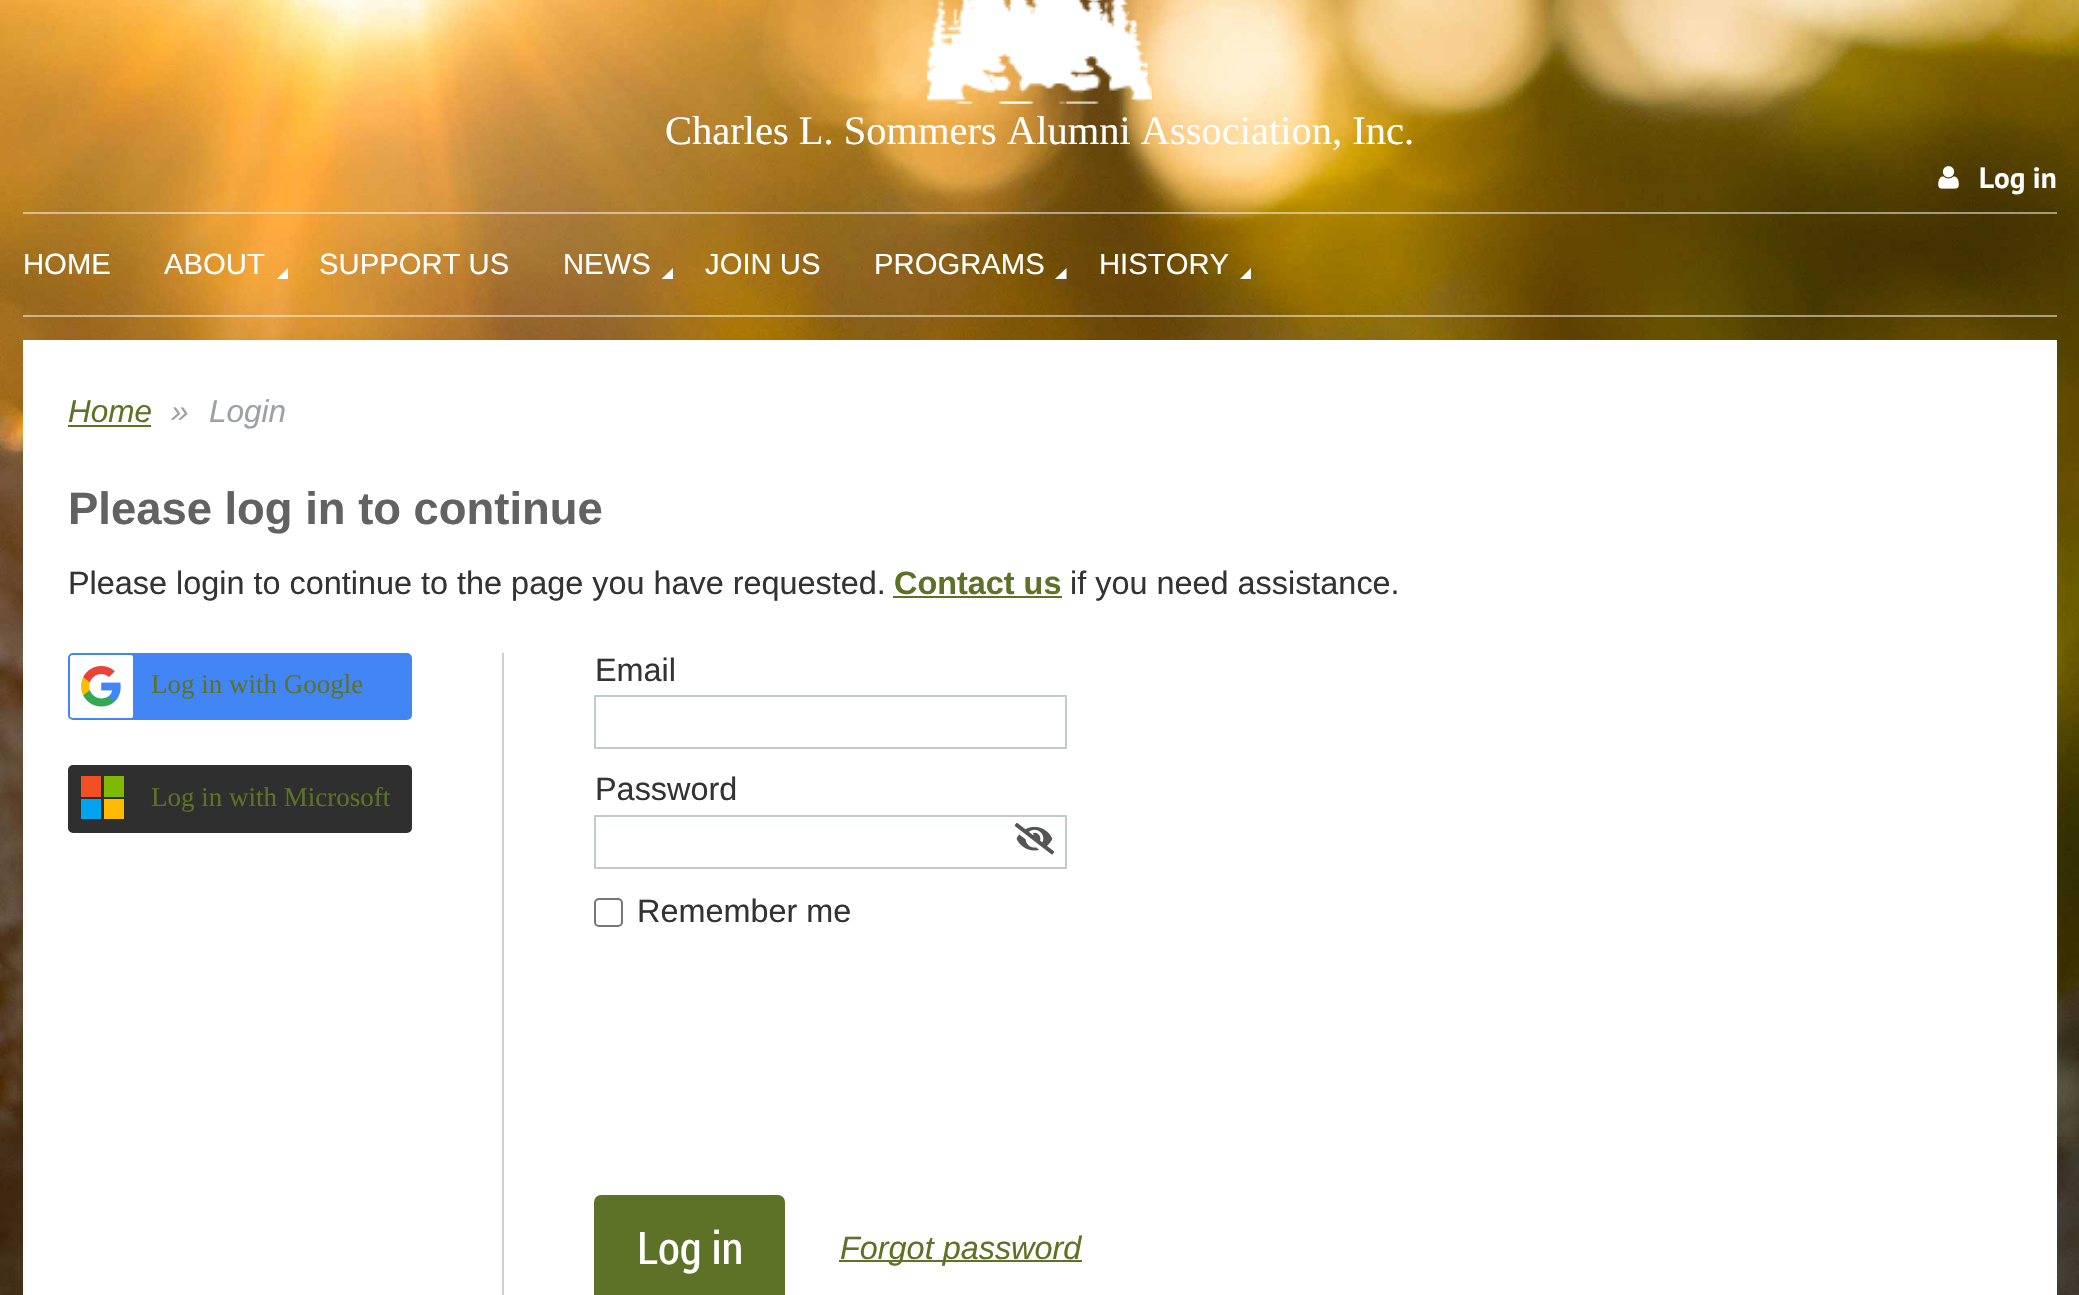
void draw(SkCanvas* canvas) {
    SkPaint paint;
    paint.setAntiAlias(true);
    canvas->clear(0xFFFFFFFF);
    canvas->drawImageRect(SkImages::DeferredFromEncodedData(SkData::MakeFromFileName("img1.png")), SkRect::MakeXYWH(0, 0, 2079, 1295), SkSamplingOptions());
    canvas->drawImageRect(SkImages::DeferredFromEncodedData(SkData::MakeFromFileName("img2.png")), SkRect::MakeXYWH(927, 0, 225, 104), SkSamplingOptions());
    SkFont font1(fontMgr->matchFamilyStyle("Liberation Serif", SkFontStyle::Normal()), 40.5f);
    font1.setSubpixel(true);
    paint.setColor(0xFFFFFFFF);
    canvas->drawString("Charles L. Sommers Alumni Association, Inc.", 665, 144, font1, paint);
    canvas->drawImageRect(SkImages::DeferredFromEncodedData(SkData::MakeFromFileName("img3.png")), SkRect::MakeXYWH(1938, 166, 21, 23), SkSamplingOptions());
    SkFont font2(fontMgr->matchFamilyStyle("PT Sans", SkFontStyle::Bold()), 29.25f);
    font2.setSubpixel(true);
    canvas->drawString("Log in", 1979, 188, font2, paint);
    paint.setColor(0x80FFFFFF);
    canvas->drawRect(SkRect::MakeXYWH(23, 212, 2034, 2), paint);
    canvas->drawRect(SkRect::MakeXYWH(23, 315, 2034, 2), paint);
    SkFont font3(fontMgr->matchFamilyStyle("Liberation Sans", SkFontStyle::Normal()), 29.25f);
    font3.setSubpixel(true);
    paint.setColor(0xFFFFFFFF);
    canvas->drawString("HOME", 23, 274, font3, paint);
    canvas->drawString("ABOUT", 164, 274, font3, paint);
    canvas->drawPath(SkPathBuilder().moveTo(288, 279).lineTo(277, 279).lineTo(288, 268).close().detach(), paint);
    canvas->drawString("SUPPORT US", 319, 274, font3, paint);
    canvas->drawString("NEWS", 563, 274, font3, paint);
    canvas->drawPath(SkPathBuilder().moveTo(673, 279).lineTo(661.5f, 279).lineTo(673, 268).close().detach(), paint);
    canvas->drawString("JOIN US", 705, 274, font3, paint);
    canvas->drawString("PROGRAMS", 874, 274, font3, paint);
    canvas->drawPath(SkPathBuilder().moveTo(1066.5f, 279).lineTo(1055, 279).lineTo(1066.5f, 268).close().detach(), paint);
    canvas->drawString("HISTORY", 1099, 274, font3, paint);
    canvas->drawPath(SkPathBuilder().moveTo(1251, 279).lineTo(1240, 279).lineTo(1251, 268).close().detach(), paint);
    canvas->drawRect(SkRect::MakeXYWH(23, 340, 2034, 955), paint);
    SkFont font4(fontMgr->matchFamilyStyle("Liberation Sans", SkFontStyle::Italic()), 31.5f);
    font4.setSubpixel(true);
    paint.setColor(0xFF5D7227);
    canvas->drawString("Home", 68, 422, font4, paint);
    canvas->drawRect(SkRect::MakeXYWH(68, 425, 83, 2), paint);
    paint.setColor(0xFF9DA1A3);
    canvas->drawString("»", 171, 422, font4, paint);
    canvas->drawString("Login", 209, 422, font4, paint);
    SkFont font5(fontMgr->matchFamilyStyle("Liberation Sans", SkFontStyle::Bold()), 45.4f);
    font5.setSubpixel(true);
    paint.setColor(0xFF626262);
    canvas->drawString("Please log in to continue", 68, 524, font5, paint);
    SkFont font6(fontMgr->matchFamilyStyle("Liberation Sans", SkFontStyle::Normal()), 32.4f);
    font6.setSubpixel(true);
    paint.setColor(0xFF333333);
    canvas->drawString("Please login to continue to the page you have requested.", 68, 594, font6, paint);
    SkFont font7(fontMgr->matchFamilyStyle("Liberation Sans", SkFontStyle::Bold()), 32.4f);
    font7.setSubpixel(true);
    paint.setColor(0xFF5D7227);
    canvas->drawString("Contact us", 894, 594, font7, paint);
    canvas->drawRect(SkRect::MakeXYWH(893, 596, 169, 2), paint);
    paint.setColor(0xFF333333);
    canvas->drawString("if you need assistance.", 1070, 594, font6, paint);
    paint.setColor(0xFFCDCDCD);
    canvas->drawRect(SkRect::MakeXYWH(502, 653, 2, 642), paint);
    paint.setColor(0xFF4285F4);
    canvas->drawRoundRect(SkRect::MakeXYWH(69, 654, 342, 65), 4, 4, paint);
    paint.setStyle(SkPaint::kStroke_Style);
    paint.setStrokeWidth(2);
    canvas->drawRoundRect(SkRect::MakeXYWH(69, 654, 342, 65), 4, 4, paint);
    canvas->drawImageRect(SkImages::DeferredFromEncodedData(SkData::MakeFromFileName("img4.png")), SkRect::MakeXYWH(70, 655, 63, 63), SkSamplingOptions());
    SkFont font8(fontMgr->matchFamilyStyle("Liberation Serif", SkFontStyle::Normal()), 27);
    font8.setSubpixel(true);
    paint.setStyle(SkPaint::kFill_Style);
    paint.setColor(0xFF5D7227);
    canvas->drawString("Log in with Google", 151, 693, font8, paint);
    paint.setColor(0xFF2F2F2F);
    canvas->drawRoundRect(SkRect::MakeXYWH(69, 766, 342, 66), 4, 4, paint);
    paint.setStyle(SkPaint::kStroke_Style);
    canvas->drawRoundRect(SkRect::MakeXYWH(69, 766, 342, 66), 4, 4, paint);
    paint.setStyle(SkPaint::kFill_Style);
    paint.setColor(0xFFF25022);
    canvas->drawRect(SkRect::MakeXYWH(81, 776, 20, 21), paint);
    paint.setColor(0xFF00A4EF);
    canvas->drawRect(SkRect::MakeXYWH(81, 799, 20, 20), paint);
    paint.setColor(0xFF7FBA00);
    canvas->drawRect(SkRect::MakeXYWH(104, 776, 20, 21), paint);
    paint.setColor(0xFFFFB900);
    canvas->drawRect(SkRect::MakeXYWH(104, 799, 20, 20), paint);
    paint.setColor(0xFF5D7227);
    canvas->drawString("Log in with Microsoft", 151, 806, font8, paint);
    paint.setColor(0xFF333333);
    canvas->drawString("Email", 595, 681, font6, paint);
    paint.setStyle(SkPaint::kStroke_Style);
    paint.setColor(0xFFC1CBCC);
    canvas->drawRect(SkRect::MakeXYWH(595, 696, 471, 52), paint);
    paint.setStyle(SkPaint::kFill_Style);
    paint.setColor(0xFF333333);
    canvas->drawString("Password", 595, 800, font6, paint);
    paint.setStyle(SkPaint::kStroke_Style);
    paint.setColor(0xFFC1CBCC);
    canvas->drawRect(SkRect::MakeXYWH(595, 816, 471, 52), paint);
    canvas->drawImageRect(SkImages::DeferredFromEncodedData(SkData::MakeFromFileName("img5.png")), SkRect::MakeXYWH(1014, 823, 41, 32), SkSamplingOptions());
    paint.setColor(0xFF767676);
    canvas->drawRoundRect(SkRect::MakeXYWH(595, 899, 27, 27), 4, 4, paint);
    paint.setStyle(SkPaint::kFill_Style);
    paint.setColor(0xFF333333);
    canvas->drawString("Remember me", 637, 922, font6, paint);
    paint.setColor(0xFF5D7227);
    canvas->drawRoundRect(SkRect::MakeXYWH(594, 1195, 191, 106), 7, 7, paint);
    SkFont font9(fontMgr->matchFamilyStyle("Roboto Condensed", SkFontStyle::Normal()), 45);
    font9.setSubpixel(true);
    paint.setColor(0xFFFFFFFF);
    canvas->drawString("Log in", 637, 1264, font9, paint);
    paint.setColor(0xFF5D7227);
    canvas->drawRect(SkRect::MakeXYWH(839, 1260, 243, 2), paint);
    SkFont font10(fontMgr->matchFamilyStyle("Liberation Sans", SkFontStyle::Italic()), 32.4f);
    font10.setSubpixel(true);
    canvas->drawString("Forgot password", 840, 1259, font10, paint);
}
